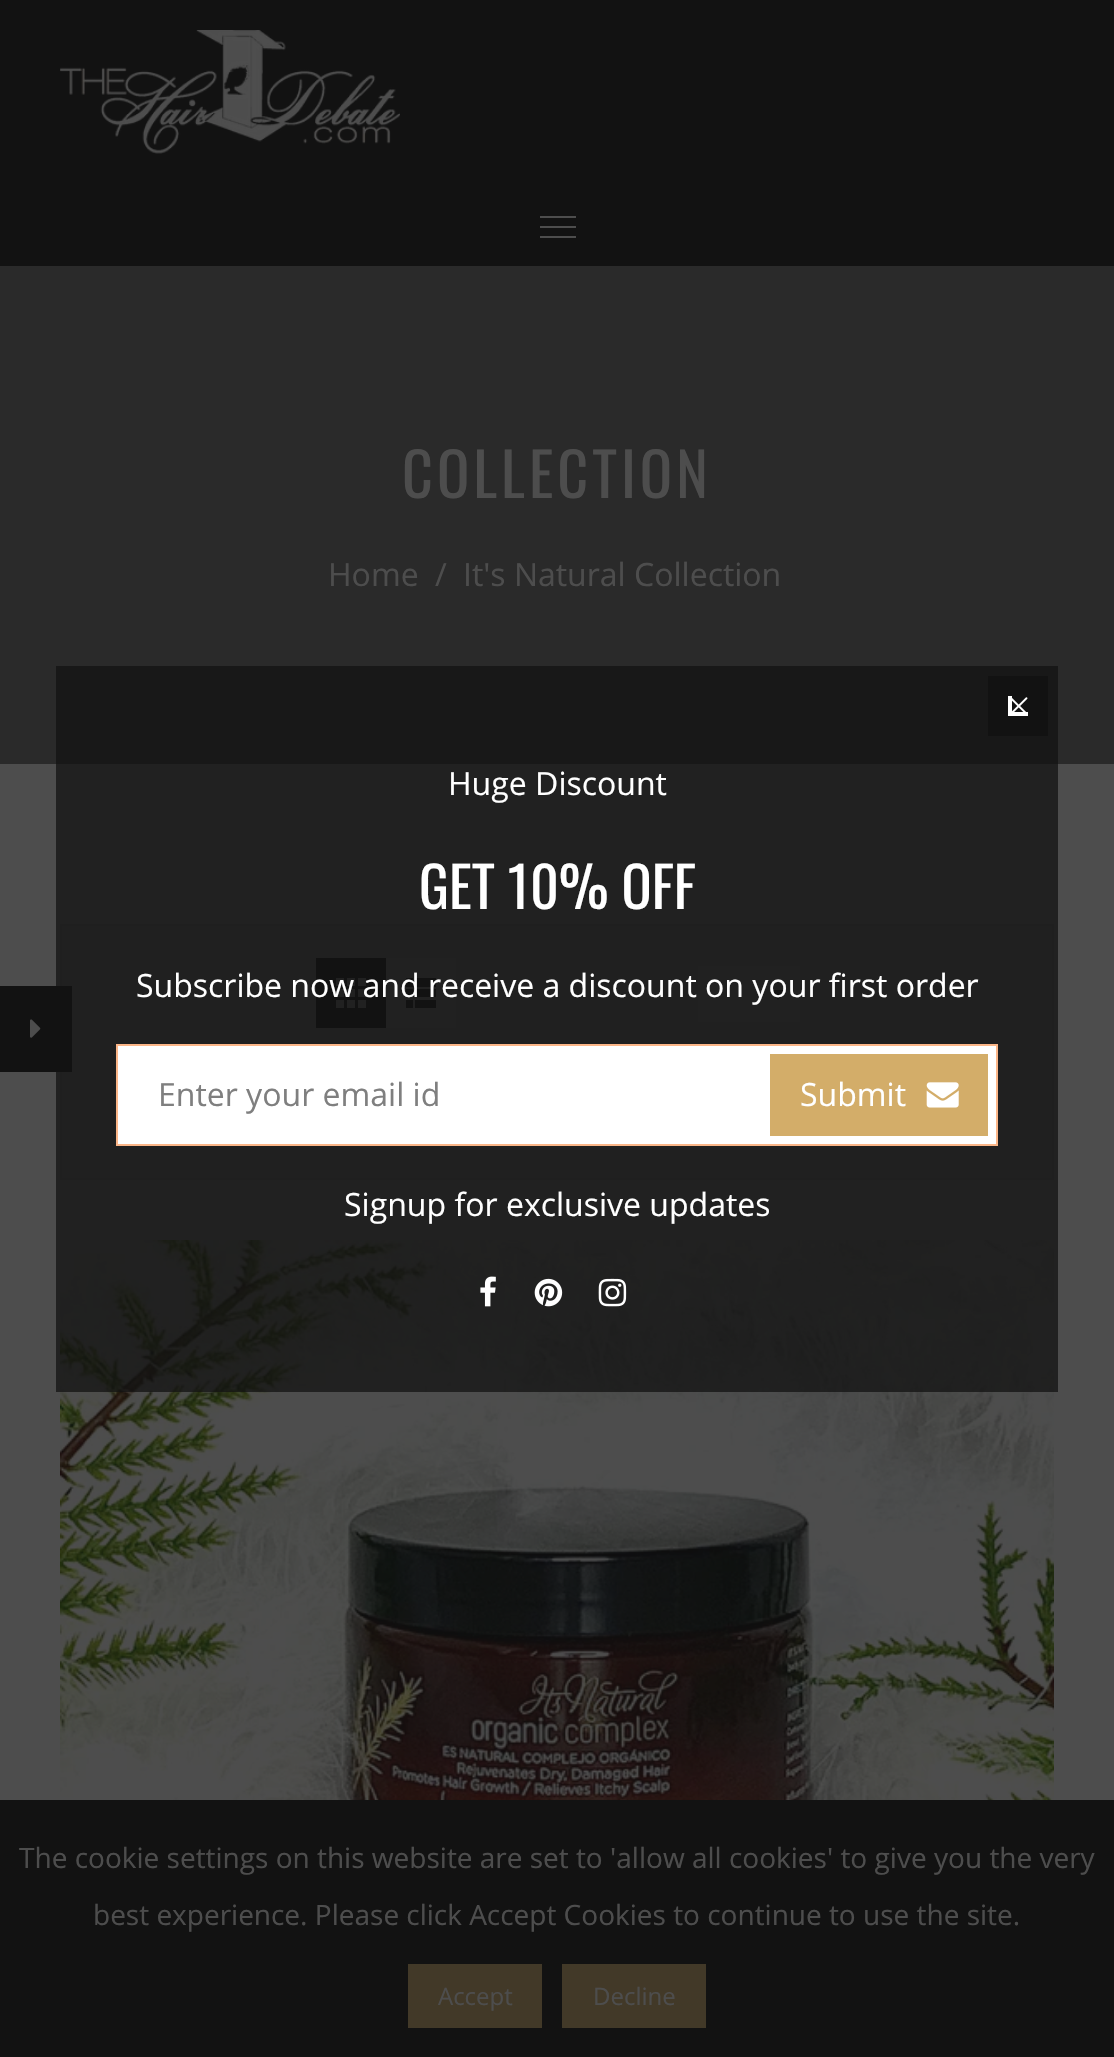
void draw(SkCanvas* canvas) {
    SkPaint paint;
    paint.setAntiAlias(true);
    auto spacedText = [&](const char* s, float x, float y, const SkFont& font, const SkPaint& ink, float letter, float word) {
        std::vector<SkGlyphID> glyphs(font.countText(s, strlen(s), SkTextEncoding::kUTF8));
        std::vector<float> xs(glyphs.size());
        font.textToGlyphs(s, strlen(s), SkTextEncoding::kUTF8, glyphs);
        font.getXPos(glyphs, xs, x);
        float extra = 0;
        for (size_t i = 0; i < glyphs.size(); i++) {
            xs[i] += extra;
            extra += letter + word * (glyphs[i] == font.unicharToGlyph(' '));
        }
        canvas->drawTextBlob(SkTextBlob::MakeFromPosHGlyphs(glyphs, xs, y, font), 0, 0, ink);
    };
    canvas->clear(0xFF4D4D4D);
    paint.setColor(0xFF121212);
    canvas->drawRect(SkRect::MakeXYWH(0, 0, 1114, 266), paint);
    canvas->drawImageRect(SkImages::DeferredFromEncodedData(SkData::MakeFromFileName("img1.png")), SkRect::MakeXYWH(60, 30, 340, 124), SkSamplingOptions());
    paint.setColor(0xFF4D4D4D);
    canvas->drawRect(SkRect::MakeXYWH(540, 226, 36, 2), paint);
    canvas->drawRect(SkRect::MakeXYWH(540, 216, 36, 2), paint);
    canvas->drawRect(SkRect::MakeXYWH(540, 236, 36, 2), paint);
    paint.setColor(0xFF2A2A2A);
    canvas->drawRect(SkRect::MakeXYWH(0, 266, 1114, 498), paint);
    SkFont font1(fontMgr->matchFamilyStyle("Oswald", SkFontStyle::Normal()), 60);
    font1.setSubpixel(true);
    paint.setColor(0xFF4D4D4D);
    spacedText("COLLECTION", 402, 498, font1, paint, 4, 0);
    SkFont font2(fontMgr->matchFamilyStyle("Open Sans", SkFontStyle::Normal()), 32);
    font2.setSubpixel(true);
    canvas->drawString("Home", 328, 586, font2, paint);
    canvas->drawString("/", 435, 586, font2, paint);
    canvas->drawString("It's Natural Collection", 463, 586, font2, paint);
    paint.setColor(0xFF4A4A4A);
    canvas->drawRect(SkRect::MakeXYWH(61, 925, 992, 254), paint);
    paint.setStyle(SkPaint::kStroke_Style);
    paint.setStrokeWidth(2);
    paint.setColor(0xFF484848);
    canvas->drawRect(SkRect::MakeXYWH(61, 925, 992, 254), paint);
    paint.setStyle(SkPaint::kFill_Style);
    paint.setColor(0xFF121212);
    canvas->drawRect(SkRect::MakeXYWH(0, 986, 72, 86), paint);
    canvas->drawImageRect(SkImages::DeferredFromEncodedData(SkData::MakeFromFileName("img2.png")), SkRect::MakeXYWH(30, 1019, 11, 19), SkSamplingOptions());
    paint.setColor(0xFF4D4D4D);
    canvas->drawRect(SkRect::MakeXYWH(386, 958, 70, 70), paint);
    paint.setColor(0xFF121212);
    canvas->drawRect(SkRect::MakeXYWH(316, 958, 70, 70), paint);
    canvas->drawImageRect(SkImages::DeferredFromEncodedData(SkData::MakeFromFileName("img3.png")), SkRect::MakeXYWH(336, 978, 30, 30), SkSamplingOptions());
    canvas->drawRect(SkRect::MakeXYWH(406, 978, 7, 9), paint);
    canvas->drawRect(SkRect::MakeXYWH(415, 978, 21, 9), paint);
    canvas->drawRect(SkRect::MakeXYWH(406, 989, 7, 8), paint);
    canvas->drawRect(SkRect::MakeXYWH(415, 989, 21, 8), paint);
    canvas->drawRect(SkRect::MakeXYWH(406, 1000, 7, 8), paint);
    canvas->drawRect(SkRect::MakeXYWH(415, 1000, 21, 8), paint);
    paint.setColor(0xFF4D4D4D);
    canvas->drawRect(SkRect::MakeXYWH(698, 966, 102, 56), paint);
    paint.setColor(0xFF121212);
    canvas->drawPath(SkPathBuilder().moveTo(770, 990).lineTo(786, 990).lineTo(778, 1000).close().detach(), paint);
    paint.setColor(0xFF4D4D4D);
    canvas->drawRect(SkRect::MakeXYWH(444, 1146, 338, 2), paint);
    canvas->drawImageRect(SkImages::DeferredFromEncodedData(SkData::MakeFromFileName("img4.png")), SkRect::MakeXYWH(60, 1240, 994, 560), SkSamplingOptions());
    paint.setColor(0xBF121212);
    canvas->drawRect(SkRect::MakeXYWH(56, 666, 1002, 726), paint);
    paint.setColor(0xFF121212);
    canvas->drawRect(SkRect::MakeXYWH(988, 676, 60, 60), paint);
    canvas->drawImageRect(SkImages::DeferredFromEncodedData(SkData::MakeFromFileName("img5.png")), SkRect::MakeXYWH(1012, 697, 16, 15), SkSamplingOptions());
    paint.setColor(0xFFFFFFFF);
    canvas->drawRect(SkRect::MakeXYWH(1008, 712, 20, 4), paint);
    canvas->drawRect(SkRect::MakeXYWH(1008, 696, 4, 20), paint);
    canvas->drawString("Huge Discount", 448, 795, font2, paint);
    SkFont font3(fontMgr->matchFamilyStyle("Oswald", SkFontStyle::Normal()), 56);
    font3.setSubpixel(true);
    canvas->drawString("GET 10% OFF", 419, 909, font3, paint);
    canvas->drawString("Subscribe now and receive a discount on your first order", 136, 997, font2, paint);
    canvas->drawRect(SkRect::MakeXYWH(117, 1045, 880, 100), paint);
    paint.setStyle(SkPaint::kStroke_Style);
    paint.setColor(0xFFFBB688);
    canvas->drawRect(SkRect::MakeXYWH(117, 1045, 880, 100), paint);
    paint.setStyle(SkPaint::kFill_Style);
    paint.setColor(0xFF7F7F7F);
    canvas->drawString("Enter your email id", 158, 1106, font2, paint);
    paint.setColor(0xFFD3AD69);
    canvas->drawRect(SkRect::MakeXYWH(770, 1054, 218, 82), paint);
    paint.setColor(0xFFFFFFFF);
    canvas->drawString("Submit", 800, 1106, font2, paint);
    canvas->drawImageRect(SkImages::DeferredFromEncodedData(SkData::MakeFromFileName("img6.png")), SkRect::MakeXYWH(926, 1082, 33, 26), SkSamplingOptions());
    canvas->drawString("Signup for exclusive updates", 344, 1216, font2, paint);
    canvas->drawImageRect(SkImages::DeferredFromEncodedData(SkData::MakeFromFileName("img7.png")), SkRect::MakeXYWH(480, 1276, 16, 31), SkSamplingOptions());
    canvas->drawImageRect(SkImages::DeferredFromEncodedData(SkData::MakeFromFileName("img8.png")), SkRect::MakeXYWH(534, 1278, 29, 29), SkSamplingOptions());
    canvas->drawImageRect(SkImages::DeferredFromEncodedData(SkData::MakeFromFileName("img9.png")), SkRect::MakeXYWH(598, 1278, 29, 29), SkSamplingOptions());
    paint.setColor(0xFF121212);
    canvas->drawRect(SkRect::MakeXYWH(0, 1800, 1114, 257), paint);
    SkFont font4(fontMgr->matchFamilyStyle("Open Sans", SkFontStyle::Normal()), 28);
    font4.setSubpixel(true);
    paint.setColor(0xFF4D4D4D);
    canvas->drawString("The cookie settings on this website are set to 'allow all cookies' to give you the very", 19, 1868, font4, paint);
    canvas->drawString("best experience. Please click Accept Cookies to continue to use the site.", 93, 1925, font4, paint);
    paint.setColor(0xFF423928);
    canvas->drawRect(SkRect::MakeXYWH(408, 1964, 134, 64), paint);
    SkFont font5(fontMgr->matchFamilyStyle("Open Sans", SkFontStyle::Normal()), 24);
    font5.setSubpixel(true);
    paint.setColor(0xFF4D4D4D);
    canvas->drawString("Accept", 438, 2005, font5, paint);
    paint.setColor(0xFF423928);
    canvas->drawRect(SkRect::MakeXYWH(562, 1964, 144, 64), paint);
    paint.setColor(0xFF4D4D4D);
    canvas->drawString("Decline", 593, 2005, font5, paint);
}
